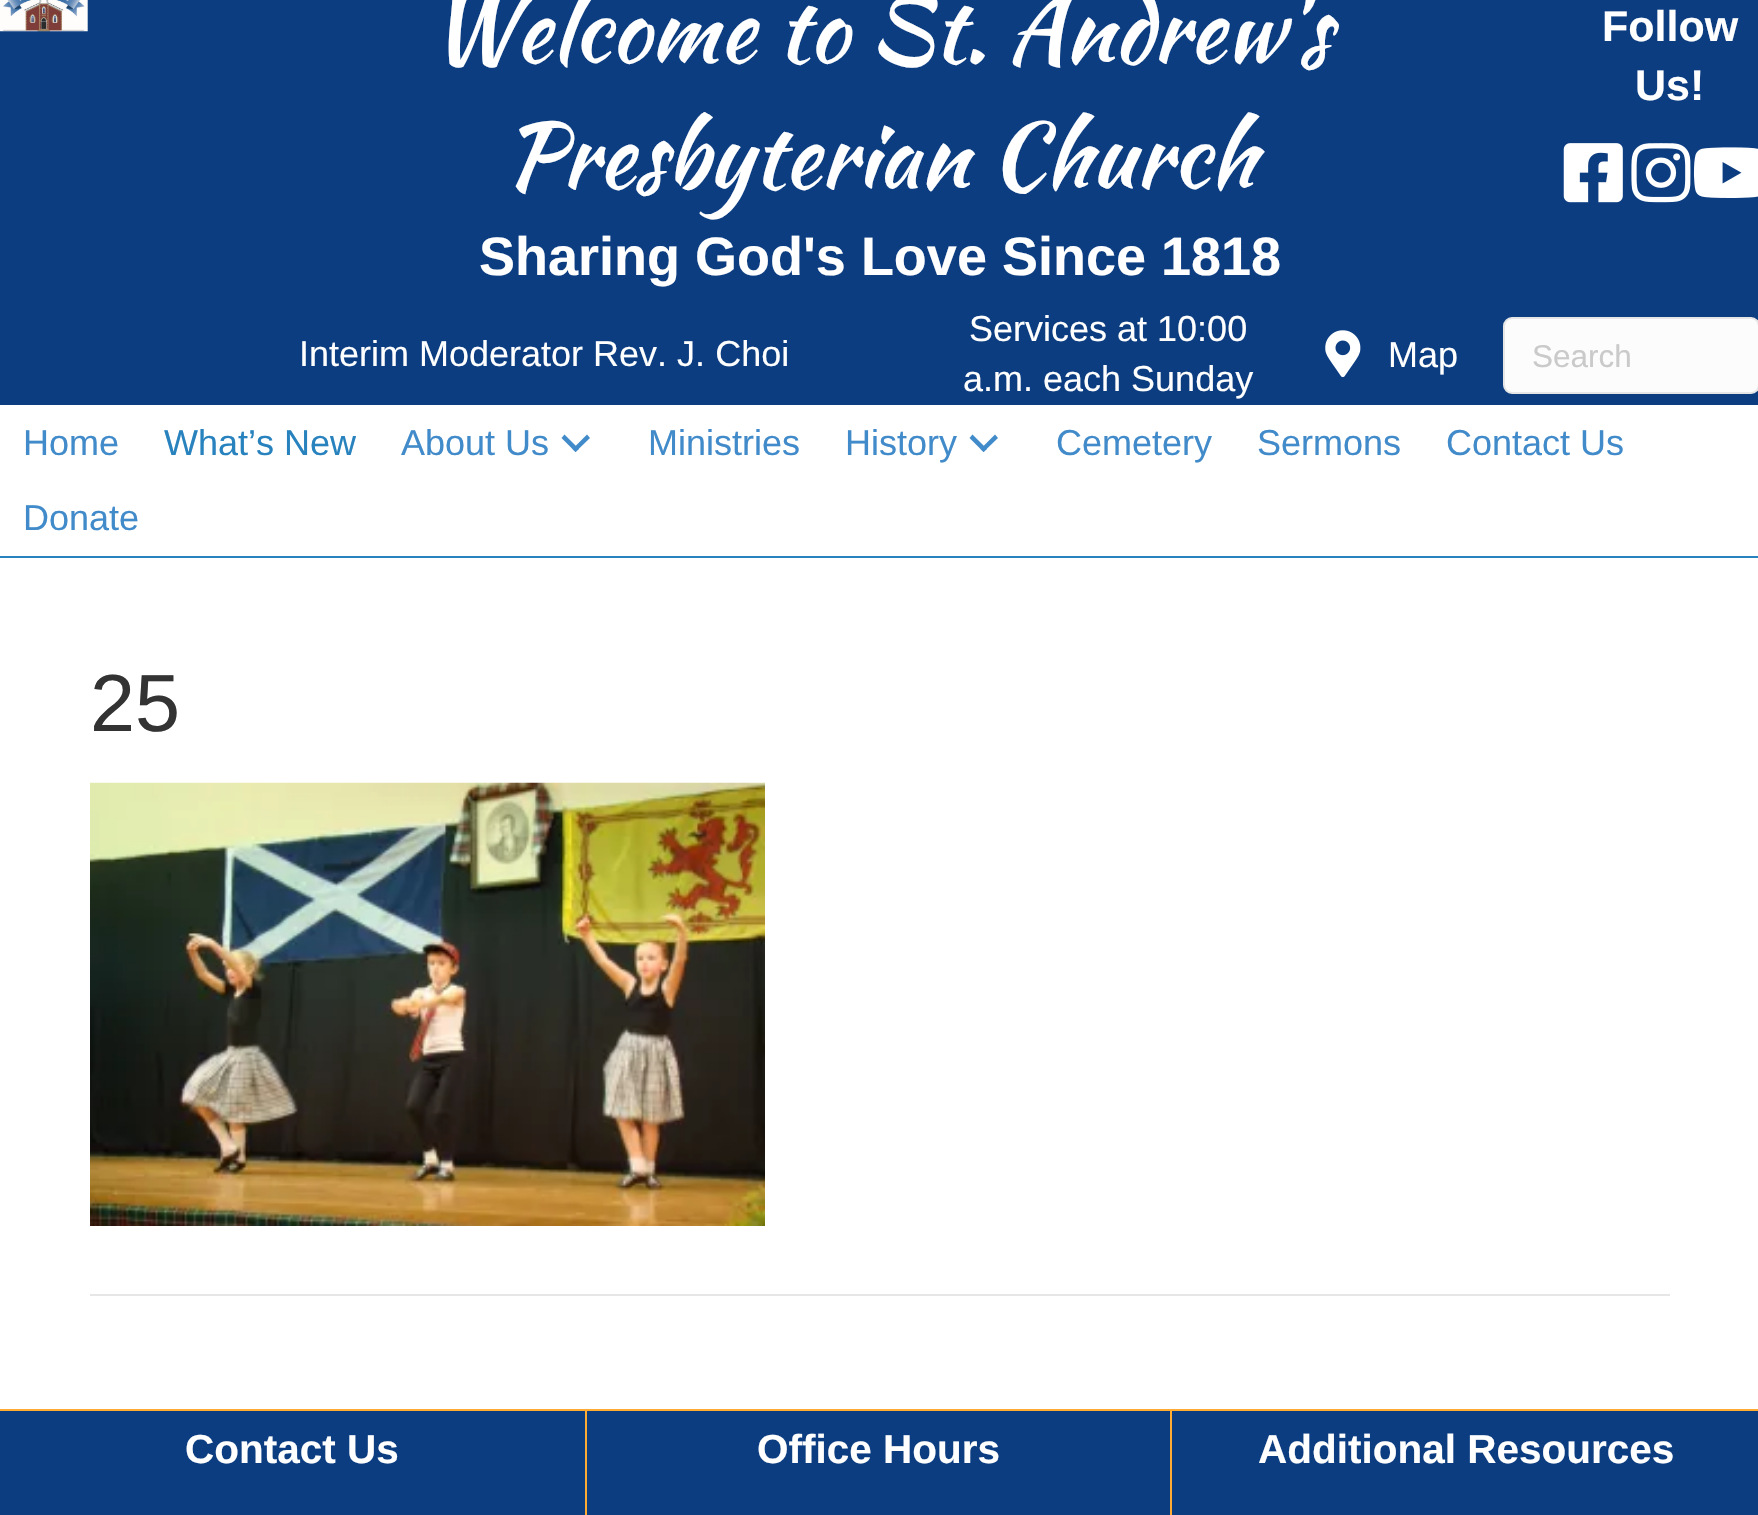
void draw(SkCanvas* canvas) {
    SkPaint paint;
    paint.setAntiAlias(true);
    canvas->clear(0xFFFFFFFF);
    paint.setColor(0xFF0C3D81);
    canvas->drawRect(SkRect::MakeXYWH(0, 0, 1758, 405), paint);
    canvas->drawImageRect(SkImages::DeferredFromEncodedData(SkData::MakeFromFileName("img1.png")), SkRect::MakeXYWH(0, 0, 88, 32), SkSamplingOptions());
    SkFont font1(fontMgr->matchFamilyStyle("Kaushan Script", SkFontStyle::Normal()), 90);
    font1.setSubpixel(true);
    paint.setColor(0xFFFFFFFF);
    canvas->drawString("Welcome to St. Andrew's", 429, 61, font1, paint);
    canvas->drawString("Presbyterian Church", 504, 187, font1, paint);
    SkFont font2(fontMgr->matchFamilyStyle("Liberation Sans", SkFontStyle::Bold()), 54);
    font2.setSubpixel(true);
    canvas->drawString("Sharing God's Love Since 1818", 479, 275, font2, paint);
    SkFont font3(fontMgr->matchFamilyStyle("Liberation Sans", SkFontStyle::Bold()), 43);
    font3.setSubpixel(true);
    canvas->drawString("Follow", 1602, 41, font3, paint);
    canvas->drawString("Us!", 1635, 100, font3, paint);
    canvas->drawImageRect(SkImages::DeferredFromEncodedData(SkData::MakeFromFileName("img2.png")), SkRect::MakeXYWH(1563, 143, 60, 60), SkSamplingOptions());
    canvas->drawImageRect(SkImages::DeferredFromEncodedData(SkData::MakeFromFileName("img3.png")), SkRect::MakeXYWH(1631, 143, 60, 60), SkSamplingOptions());
    canvas->drawImageRect(SkImages::DeferredFromEncodedData(SkData::MakeFromFileName("img4.png")), SkRect::MakeXYWH(1693, 147, 65, 51), SkSamplingOptions());
    SkFont font4(fontMgr->matchFamilyStyle("Liberation Sans", SkFontStyle::Normal()), 36);
    font4.setSubpixel(true);
    canvas->drawString("Interim Moderator Rev. J. Choi", 299, 366, font4, paint);
    canvas->drawString("Services at 10:00", 969, 341, font4, paint);
    canvas->drawString("a.m. each Sunday", 963, 391, font4, paint);
    canvas->drawImageRect(SkImages::DeferredFromEncodedData(SkData::MakeFromFileName("img5.png")), SkRect::MakeXYWH(1325, 330, 36, 48), SkSamplingOptions());
    canvas->drawString("Map", 1388, 367, font4, paint);
    paint.setColor(0xFFFCFCFC);
    canvas->drawRoundRect(SkRect::MakeXYWH(1504, 318, 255, 75), 8, 8, paint);
    paint.setStyle(SkPaint::kStroke_Style);
    paint.setStrokeWidth(2);
    paint.setColor(0xFFE6E6E6);
    canvas->drawRoundRect(SkRect::MakeXYWH(1504, 318, 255, 75), 8, 8, paint);
    SkFont font5(fontMgr->matchFamilyStyle("Liberation Sans", SkFontStyle::Normal()), 31.5f);
    font5.setSubpixel(true);
    paint.setStyle(SkPaint::kFill_Style);
    paint.setColor(0xFFCACACA);
    canvas->drawString("Search", 1532, 367, font5, paint);
    paint.setColor(0xFF2782BE);
    canvas->drawRect(SkRect::MakeXYWH(0, 556, 1758, 2), paint);
    paint.setColor(0xFF428BCA);
    canvas->drawString("Home", 23, 455, font4, paint);
    paint.setColor(0xFF2782BE);
    canvas->drawString("What’s New", 164, 455, font4, paint);
    paint.setColor(0xFF428BCA);
    canvas->drawString("About Us", 401, 455, font4, paint);
    canvas->drawPath(SkPathBuilder().moveTo(587, 434.5f).lineTo(590, 438).lineTo(575.5f, 452).lineTo(572.5f, 449).close().detach(), paint);
    canvas->drawPath(SkPathBuilder().moveTo(564.5f, 434.5f).lineTo(579, 449).lineTo(575.5f, 452).lineTo(561.5f, 438).close().detach(), paint);
    canvas->drawString("Ministries", 648, 455, font4, paint);
    canvas->drawString("History", 845, 455, font4, paint);
    canvas->drawPath(SkPathBuilder().moveTo(995, 434.5f).lineTo(998, 438).lineTo(983.5f, 452).lineTo(980.5f, 449).close().detach(), paint);
    canvas->drawPath(SkPathBuilder().moveTo(972.5f, 434.5f).lineTo(987, 449).lineTo(983.5f, 452).lineTo(969.5f, 438).close().detach(), paint);
    canvas->drawString("Cemetery", 1056, 455, font4, paint);
    canvas->drawString("Sermons", 1257, 455, font4, paint);
    canvas->drawString("Contact Us", 1446, 455, font4, paint);
    canvas->drawString("Donate", 23, 530, font4, paint);
    SkFont font6(fontMgr->matchFamilyStyle("Liberation Sans", SkFontStyle::Normal()), 81);
    font6.setSubpixel(true);
    paint.setColor(0xFF333333);
    canvas->drawString("25", 90, 731, font6, paint);
    canvas->drawImageRect(SkImages::DeferredFromEncodedData(SkData::MakeFromFileName("img6.png")), SkRect::MakeXYWH(90, 782, 675, 444), SkSamplingOptions());
    paint.setColor(0xFFE6E6E6);
    canvas->drawRect(SkRect::MakeXYWH(90, 1294, 1580, 2), paint);
    paint.setColor(0xFF0C3D81);
    canvas->drawRect(SkRect::MakeXYWH(0, 1411, 1758, 104), paint);
    paint.setColor(0xFFFFAB34);
    canvas->drawRect(SkRect::MakeXYWH(0, 1409, 1758, 2), paint);
    canvas->drawRect(SkRect::MakeXYWH(585, 1409, 2, 106), paint);
    SkFont font7(fontMgr->matchFamilyStyle("Liberation Sans", SkFontStyle::Bold()), 40.5f);
    font7.setSubpixel(true);
    paint.setColor(0xFFFFFFFF);
    canvas->drawString("Contact Us", 185, 1463, font7, paint);
    paint.setColor(0xFFFFAB34);
    canvas->drawRect(SkRect::MakeXYWH(1170, 1409, 2, 106), paint);
    paint.setColor(0xFFFFFFFF);
    canvas->drawString("Office Hours", 757, 1463, font7, paint);
    canvas->drawString("Additional Resources", 1258, 1463, font7, paint);
}
